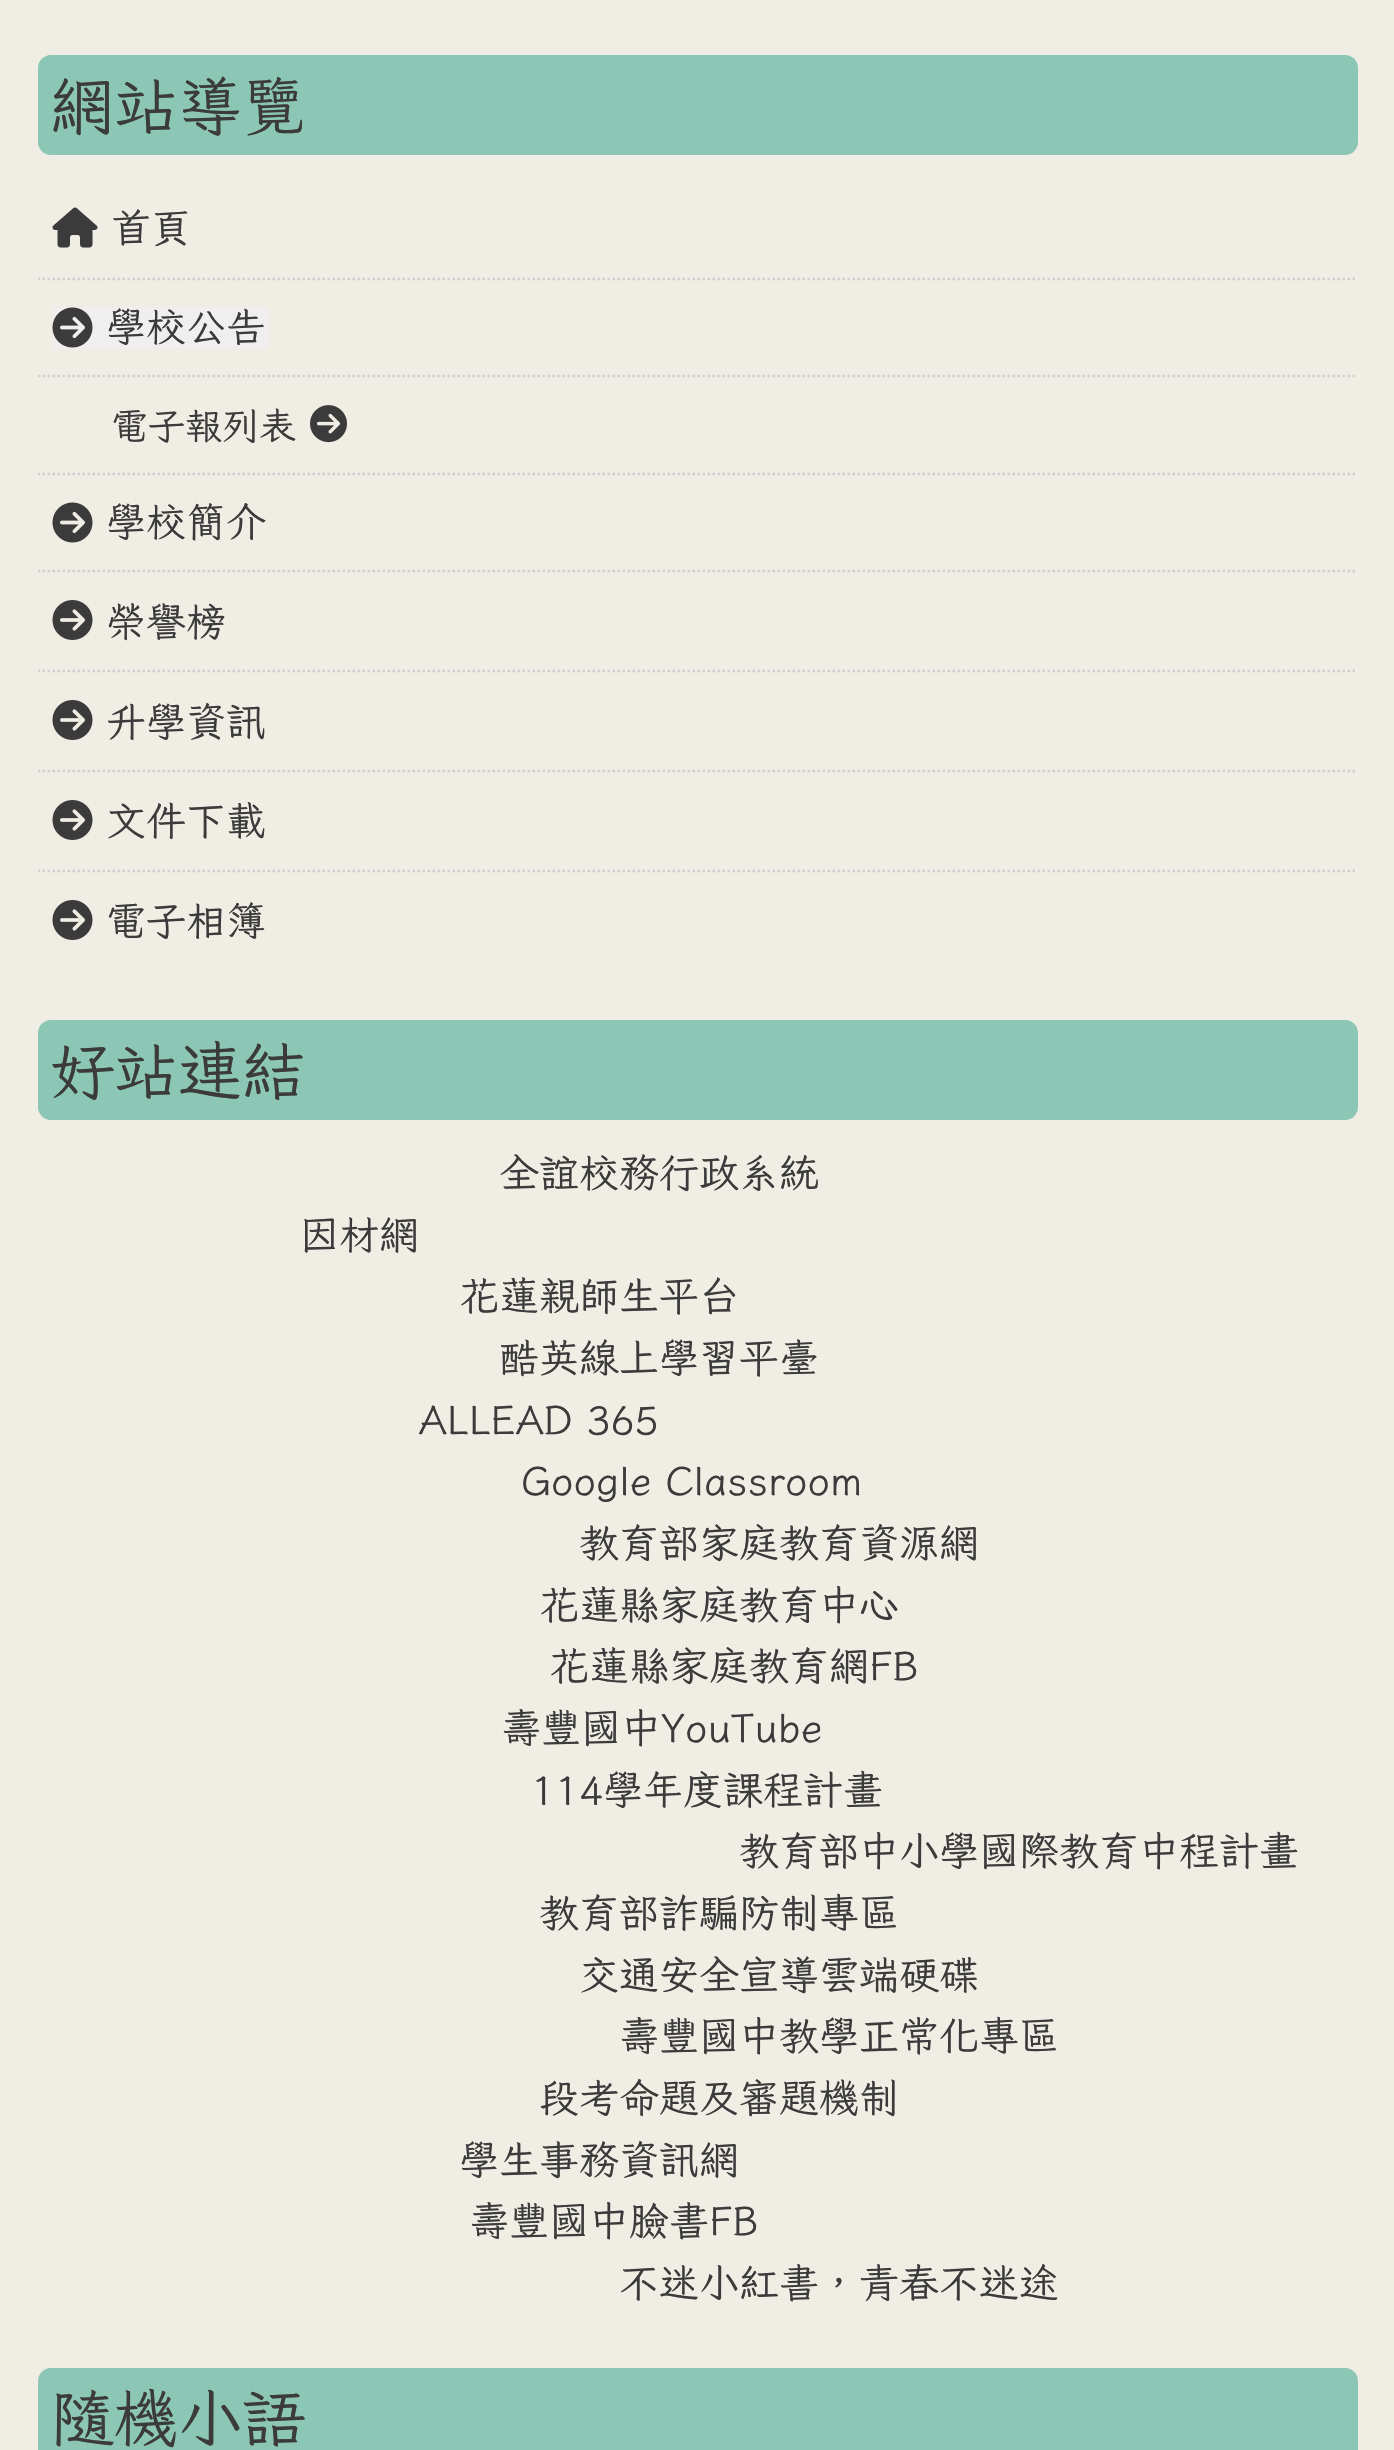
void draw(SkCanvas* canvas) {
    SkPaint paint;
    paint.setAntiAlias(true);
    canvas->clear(0xFFF0EDE5);
    paint.setColor(0xFF8CC7B5);
    canvas->drawRoundRect(SkRect::MakeXYWH(38, 55, 1320, 100), 13, 13, paint);
    SkFont font1(fontMgr->matchFamilyStyle("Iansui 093", SkFontStyle::Normal()), 64);
    font1.setSubpixel(true);
    paint.setColor(0xFF3B3B3B);
    canvas->drawString("網站導覽", 50, 129, font1, paint);
    canvas->save();
    canvas->clipRect(SkRect::MakeXYWH(38, 180, 1320, 790));
    paint.setStyle(SkPaint::kStroke_Style);
    paint.setStrokeWidth(2.5f);
    paint.setColor(0xFFCFCFCF);
    paint.setPathEffect(SkDashPathEffect::Make({{2.5f, 2.5f}}, 0));
    canvas->drawPath(SkPathBuilder().moveTo(37.5f, 279).lineTo(1357.5f, 279).detach(), paint);
    paint.setPathEffect(nullptr);
    canvas->restore();
    canvas->drawImageRect(SkImages::DeferredFromEncodedData(SkData::MakeFromFileName("img1.png")), SkRect::MakeXYWH(52, 207, 46, 41), SkSamplingOptions());
    SkFont font2(fontMgr->matchFamilyStyle("Iansui 093", SkFontStyle::Normal()), 40);
    font2.setSubpixel(true);
    paint.setStyle(SkPaint::kFill_Style);
    paint.setColor(0xFF3B3B3B);
    canvas->drawString("首頁", 111, 242, font2, paint);
    canvas->save();
    canvas->clipRect(SkRect::MakeXYWH(38, 180, 1320, 790));
    paint.setStyle(SkPaint::kStroke_Style);
    paint.setColor(0xFFCFCFCF);
    paint.setPathEffect(SkDashPathEffect::Make({{2.5f, 2.5f}}, 0));
    canvas->drawPath(SkPathBuilder().moveTo(37.5f, 376).lineTo(1357.5f, 376).detach(), paint);
    paint.setPathEffect(nullptr);
    canvas->restore();
    paint.setStyle(SkPaint::kFill_Style);
    paint.setColor(0xFFEFEFEF);
    canvas->drawRect(SkRect::MakeXYWH(53, 308, 215, 40), paint);
    canvas->drawImageRect(SkImages::DeferredFromEncodedData(SkData::MakeFromFileName("img2.png")), SkRect::MakeXYWH(52, 307, 41, 41), SkSamplingOptions());
    paint.setColor(0xFF3B3B3B);
    canvas->drawString("學校公告", 106, 341, font2, paint);
    canvas->save();
    canvas->clipRect(SkRect::MakeXYWH(38, 180, 1320, 790));
    paint.setStyle(SkPaint::kStroke_Style);
    paint.setColor(0xFFCFCFCF);
    paint.setPathEffect(SkDashPathEffect::Make({{2.5f, 2.5f}}, 0));
    canvas->drawPath(SkPathBuilder().moveTo(37.5f, 474).lineTo(1357.5f, 474).detach(), paint);
    paint.setPathEffect(nullptr);
    canvas->restore();
    SkFont font3(fontMgr->matchFamilyStyle("Iansui 093", SkFontStyle::Normal()), 37);
    font3.setSubpixel(true);
    paint.setStyle(SkPaint::kFill_Style);
    paint.setColor(0xFF3B3B3B);
    canvas->drawString("電子報列表", 111, 439, font3, paint);
    canvas->drawImageRect(SkImages::DeferredFromEncodedData(SkData::MakeFromFileName("img3.png")), SkRect::MakeXYWH(310, 405, 37, 38), SkSamplingOptions());
    canvas->save();
    canvas->clipRect(SkRect::MakeXYWH(38, 180, 1320, 790));
    paint.setStyle(SkPaint::kStroke_Style);
    paint.setColor(0xFFCFCFCF);
    paint.setPathEffect(SkDashPathEffect::Make({{2.5f, 2.5f}}, 0));
    canvas->drawPath(SkPathBuilder().moveTo(37.5f, 571).lineTo(1357.5f, 571).detach(), paint);
    paint.setPathEffect(nullptr);
    canvas->restore();
    canvas->drawImageRect(SkImages::DeferredFromEncodedData(SkData::MakeFromFileName("img4.png")), SkRect::MakeXYWH(52, 502, 41, 41), SkSamplingOptions());
    paint.setStyle(SkPaint::kFill_Style);
    paint.setColor(0xFF3B3B3B);
    canvas->drawString("學校簡介", 106, 536, font2, paint);
    canvas->save();
    canvas->clipRect(SkRect::MakeXYWH(38, 180, 1320, 790));
    paint.setStyle(SkPaint::kStroke_Style);
    paint.setColor(0xFFCFCFCF);
    paint.setPathEffect(SkDashPathEffect::Make({{2.5f, 2.5f}}, 0));
    canvas->drawPath(SkPathBuilder().moveTo(37.5f, 671).lineTo(1357.5f, 671).detach(), paint);
    paint.setPathEffect(nullptr);
    canvas->restore();
    canvas->drawImageRect(SkImages::DeferredFromEncodedData(SkData::MakeFromFileName("img5.png")), SkRect::MakeXYWH(52, 600, 41, 40), SkSamplingOptions());
    paint.setStyle(SkPaint::kFill_Style);
    paint.setColor(0xFF3B3B3B);
    canvas->drawString("榮譽榜", 106, 636, font2, paint);
    canvas->save();
    canvas->clipRect(SkRect::MakeXYWH(38, 180, 1320, 790));
    paint.setStyle(SkPaint::kStroke_Style);
    paint.setColor(0xFFCFCFCF);
    paint.setPathEffect(SkDashPathEffect::Make({{2.5f, 2.5f}}, 0));
    canvas->drawPath(SkPathBuilder().moveTo(37.5f, 771).lineTo(1357.5f, 771).detach(), paint);
    paint.setPathEffect(nullptr);
    canvas->restore();
    canvas->drawImageRect(SkImages::DeferredFromEncodedData(SkData::MakeFromFileName("img5.png")), SkRect::MakeXYWH(52, 700, 41, 40), SkSamplingOptions());
    paint.setStyle(SkPaint::kFill_Style);
    paint.setColor(0xFF3B3B3B);
    canvas->drawString("升學資訊", 106, 736, font2, paint);
    canvas->save();
    canvas->clipRect(SkRect::MakeXYWH(38, 180, 1320, 790));
    paint.setStyle(SkPaint::kStroke_Style);
    paint.setColor(0xFFCFCFCF);
    paint.setPathEffect(SkDashPathEffect::Make({{2.5f, 2.5f}}, 0));
    canvas->drawPath(SkPathBuilder().moveTo(37.5f, 871).lineTo(1357.5f, 871).detach(), paint);
    paint.setPathEffect(nullptr);
    canvas->restore();
    canvas->drawImageRect(SkImages::DeferredFromEncodedData(SkData::MakeFromFileName("img5.png")), SkRect::MakeXYWH(52, 800, 41, 40), SkSamplingOptions());
    paint.setStyle(SkPaint::kFill_Style);
    paint.setColor(0xFF3B3B3B);
    canvas->drawString("文件下載", 106, 835, font2, paint);
    canvas->drawImageRect(SkImages::DeferredFromEncodedData(SkData::MakeFromFileName("img5.png")), SkRect::MakeXYWH(52, 900, 41, 40), SkSamplingOptions());
    canvas->drawString("電子相簿", 106, 935, font2, paint);
    paint.setColor(0xFF8CC7B5);
    canvas->drawRoundRect(SkRect::MakeXYWH(38, 1020, 1320, 100), 13, 13, paint);
    paint.setColor(0xFF3B3B3B);
    canvas->drawString("好站連結", 50, 1094, font1, paint);
    canvas->drawString("全誼校務行政系統", 499, 1187, font2, paint);
    canvas->drawString("因材網", 299, 1249, font2, paint);
    canvas->drawString("花蓮親師生平台", 459, 1310, font2, paint);
    canvas->drawString("酷英線上學習平臺", 499, 1372, font2, paint);
    canvas->drawString("ALLEAD 365", 419, 1434, font2, paint);
    canvas->drawString("Google Classroom", 521, 1495, font2, paint);
    canvas->drawString("教育部家庭教育資源網", 579, 1557, font2, paint);
    canvas->drawString("花蓮縣家庭教育中心", 539, 1619, font2, paint);
    canvas->drawString("花蓮縣家庭教育網FB", 549, 1680, font2, paint);
    canvas->drawString("壽豐國中YouTube", 501, 1742, font2, paint);
    canvas->drawString("114學年度課程計畫", 531, 1804, font2, paint);
    canvas->drawString("教育部中小學國際教育中程計畫", 739, 1865, font2, paint);
    canvas->drawString("教育部詐騙防制專區", 539, 1927, font2, paint);
    canvas->drawString("交通安全宣導雲端硬碟", 579, 1989, font2, paint);
    canvas->drawString("壽豐國中教學正常化專區", 619, 2050, font2, paint);
    canvas->drawString("段考命題及審題機制", 539, 2112, font2, paint);
    canvas->drawString("學生事務資訊網", 459, 2174, font2, paint);
    canvas->drawString("壽豐國中臉書FB", 469, 2235, font2, paint);
    canvas->drawString("不迷小紅書，青春不迷途", 619, 2297, font2, paint);
    paint.setColor(0xFF8CC7B5);
    canvas->drawRoundRect(SkRect::MakeXYWH(38, 2368, 1320, 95), 13, 13, paint);
    paint.setColor(0xFF3B3B3B);
    canvas->drawString("隨機小語", 50, 2441, font1, paint);
}
